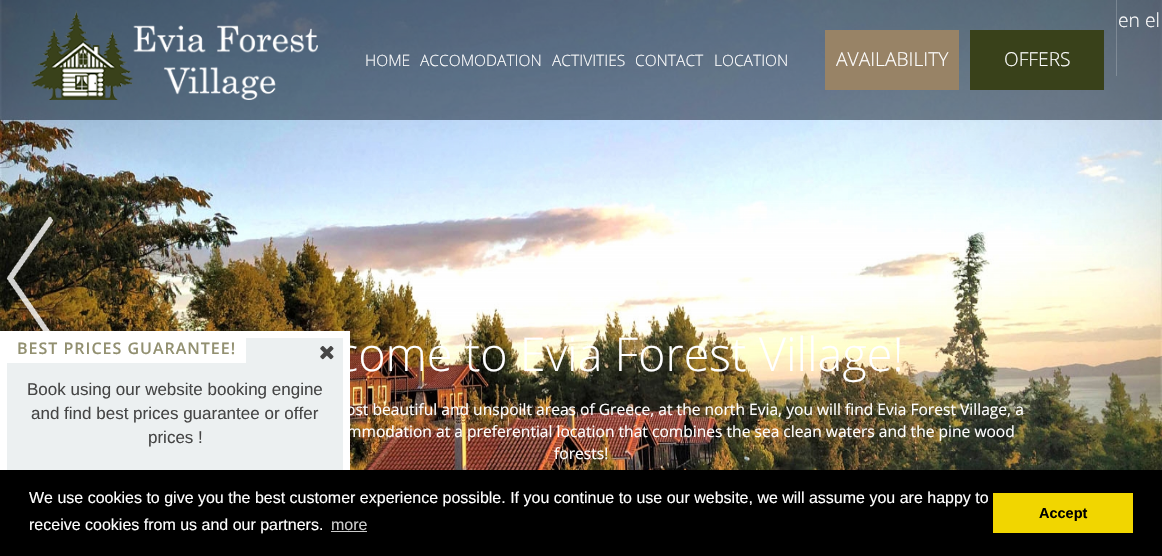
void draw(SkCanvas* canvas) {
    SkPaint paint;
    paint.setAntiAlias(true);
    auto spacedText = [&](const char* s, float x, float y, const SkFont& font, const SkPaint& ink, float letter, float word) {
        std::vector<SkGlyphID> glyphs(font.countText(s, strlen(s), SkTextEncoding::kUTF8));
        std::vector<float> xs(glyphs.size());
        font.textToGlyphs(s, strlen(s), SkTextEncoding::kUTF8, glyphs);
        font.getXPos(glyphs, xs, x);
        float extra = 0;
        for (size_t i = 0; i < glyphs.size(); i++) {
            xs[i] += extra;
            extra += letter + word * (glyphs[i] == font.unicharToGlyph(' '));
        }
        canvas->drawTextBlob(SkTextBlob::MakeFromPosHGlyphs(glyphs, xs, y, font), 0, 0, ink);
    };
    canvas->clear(0xFFFFFFFF);
    canvas->drawImageRect(SkImages::DeferredFromEncodedData(SkData::MakeFromFileName("img4.png")), SkRect::MakeXYWH(0, 0, 1162, 470), SkSamplingOptions());
    SkFont font1(fontMgr->matchFamilyStyle("Open Sans", SkFontStyle(300, SkFontStyle::kNormal_Width, SkFontStyle::kUpright_Slant)), 46.75f);
    font1.setSubpixel(true);
    paint.setColor(0xFFFFFFFF);
    canvas->drawString("come to Evia Forest Village!", 336, 371, font1, paint);
    paint.setColor(0xFFECF0F1);
    canvas->drawRect(SkRect::MakeXYWH(7, 338, 336, 132), paint);
    paint.setStyle(SkPaint::kStroke_Style);
    paint.setStrokeWidth(7);
    paint.setColor(0xFFFFFFFF);
    canvas->drawRect(SkRect::MakeXYWH(3.5f, 334.5f, 343, 218), paint);
    paint.setStyle(SkPaint::kFill_Style);
    canvas->drawRect(SkRect::MakeXYWH(7, 338, 239, 25), paint);
    SkFont font2(fontMgr->matchFamilyStyle("Open Sans", SkFontStyle(600, SkFontStyle::kNormal_Width, SkFontStyle::kUpright_Slant)), 16);
    font2.setSubpixel(true);
    paint.setColor(0xFF929070);
    spacedText("BEST PRICES GUARANTEE!", 17, 354, font2, paint, 1, 0);
    canvas->drawImageRect(SkImages::DeferredFromEncodedData(SkData::MakeFromFileName("img1.png")), SkRect::MakeXYWH(320, 346, 14, 14), SkSamplingOptions());
    SkFont font3(fontMgr->matchFamilyStyle("Liberation Sans", SkFontStyle::Normal()), 17);
    font3.setSubpixel(true);
    paint.setColor(0xFF464646);
    canvas->drawString("Book using our website booking engine", 27, 395, font3, paint);
    canvas->drawString("and find best prices guarantee or offer", 31, 419, font3, paint);
    canvas->drawString("prices !", 148, 443, font3, paint);
    paint.setColor(0x820A1523);
    canvas->drawRect(SkRect::MakeXYWH(0, 0, 1162, 120), paint);
    canvas->drawImageRect(SkImages::DeferredFromEncodedData(SkData::MakeFromFileName("img2.png")), SkRect::MakeXYWH(30, 10, 288, 90), SkSamplingOptions());
    paint.setColor(0x33FFFFFF);
    canvas->drawRect(SkRect::MakeXYWH(1116, 0, 1, 76), paint);
    SkFont font4(fontMgr->matchFamilyStyle("Open Sans", SkFontStyle(300, SkFontStyle::kNormal_Width, SkFontStyle::kUpright_Slant)), 19.25f);
    font4.setSubpixel(true);
    paint.setColor(0xFFFFFFFF);
    canvas->drawString("en el", 1118, 27, font4, paint);
    SkFont font5(fontMgr->matchFamilyStyle("Open Sans", SkFontStyle(300, SkFontStyle::kNormal_Width, SkFontStyle::kUpright_Slant)), 15.6f);
    font5.setSubpixel(true);
    canvas->drawString("HOME", 365, 66, font5, paint);
    canvas->drawString("ACCOMODATION", 420, 66, font5, paint);
    canvas->drawString("ACTIVITIES", 552, 66, font5, paint);
    canvas->drawString("CONTACT", 635, 66, font5, paint);
    canvas->drawString("LOCATION", 714, 66, font5, paint);
    paint.setColor(0xFF988366);
    canvas->drawRect(SkRect::MakeXYWH(825, 30, 134, 60), paint);
    paint.setColor(0xFFFFFFFF);
    canvas->drawString("AVAILABILITY", 836, 66, font4, paint);
    paint.setColor(0xFF39411A);
    canvas->drawRect(SkRect::MakeXYWH(970, 30, 134, 60), paint);
    paint.setColor(0xFFFFFFFF);
    canvas->drawString("OFFERS", 1004, 66, font4, paint);
    canvas->drawImageRect(SkImages::DeferredFromEncodedData(SkData::MakeFromFileName("img3.png")), SkRect::MakeXYWH(6, 216, 47, 115), SkSamplingOptions());
    SkFont font6(fontMgr->matchFamilyStyle("Open Sans", SkFontStyle::Normal()), 15.6f);
    font6.setSubpixel(true);
    canvas->drawString("ost beautiful and unspoilt areas of Greece, at the north Evia, you will find Evia Forest Village, a", 346, 415, font6, paint);
    canvas->drawString("mmodation at a preferential location that combines the sea clean waters and the pine wood", 347, 437, font6, paint);
    canvas->drawString("forests!", 554, 459, font6, paint);
    paint.setColor(0xFF000000);
    canvas->drawRect(SkRect::MakeXYWH(0, 470, 1162, 86), paint);
    SkFont font7(fontMgr->matchFamilyStyle("Liberation Sans", SkFontStyle::Normal()), 16);
    font7.setSubpixel(true);
    paint.setColor(0xFFFFFFFF);
    canvas->drawString("We use cookies to give you the best customer experience possible. If you continue to use our website, we will assume you are happy to", 29, 503, font7, paint);
    canvas->drawString("receive cookies from us and our partners.", 29, 530, font7, paint);
    paint.setColor(0xFFCCCCCC);
    canvas->drawString("more", 331, 530, font7, paint);
    canvas->drawRect(SkRect::MakeXYWH(331, 531, 36, 1), paint);
    paint.setColor(0xFFF1D600);
    canvas->drawRect(SkRect::MakeXYWH(993, 493, 140, 40), paint);
    SkFont font8(fontMgr->matchFamilyStyle("Liberation Sans", SkFontStyle::Bold()), 14.5f);
    font8.setSubpixel(true);
    paint.setColor(0xFF000000);
    canvas->drawString("Accept", 1039, 518, font8, paint);
}
